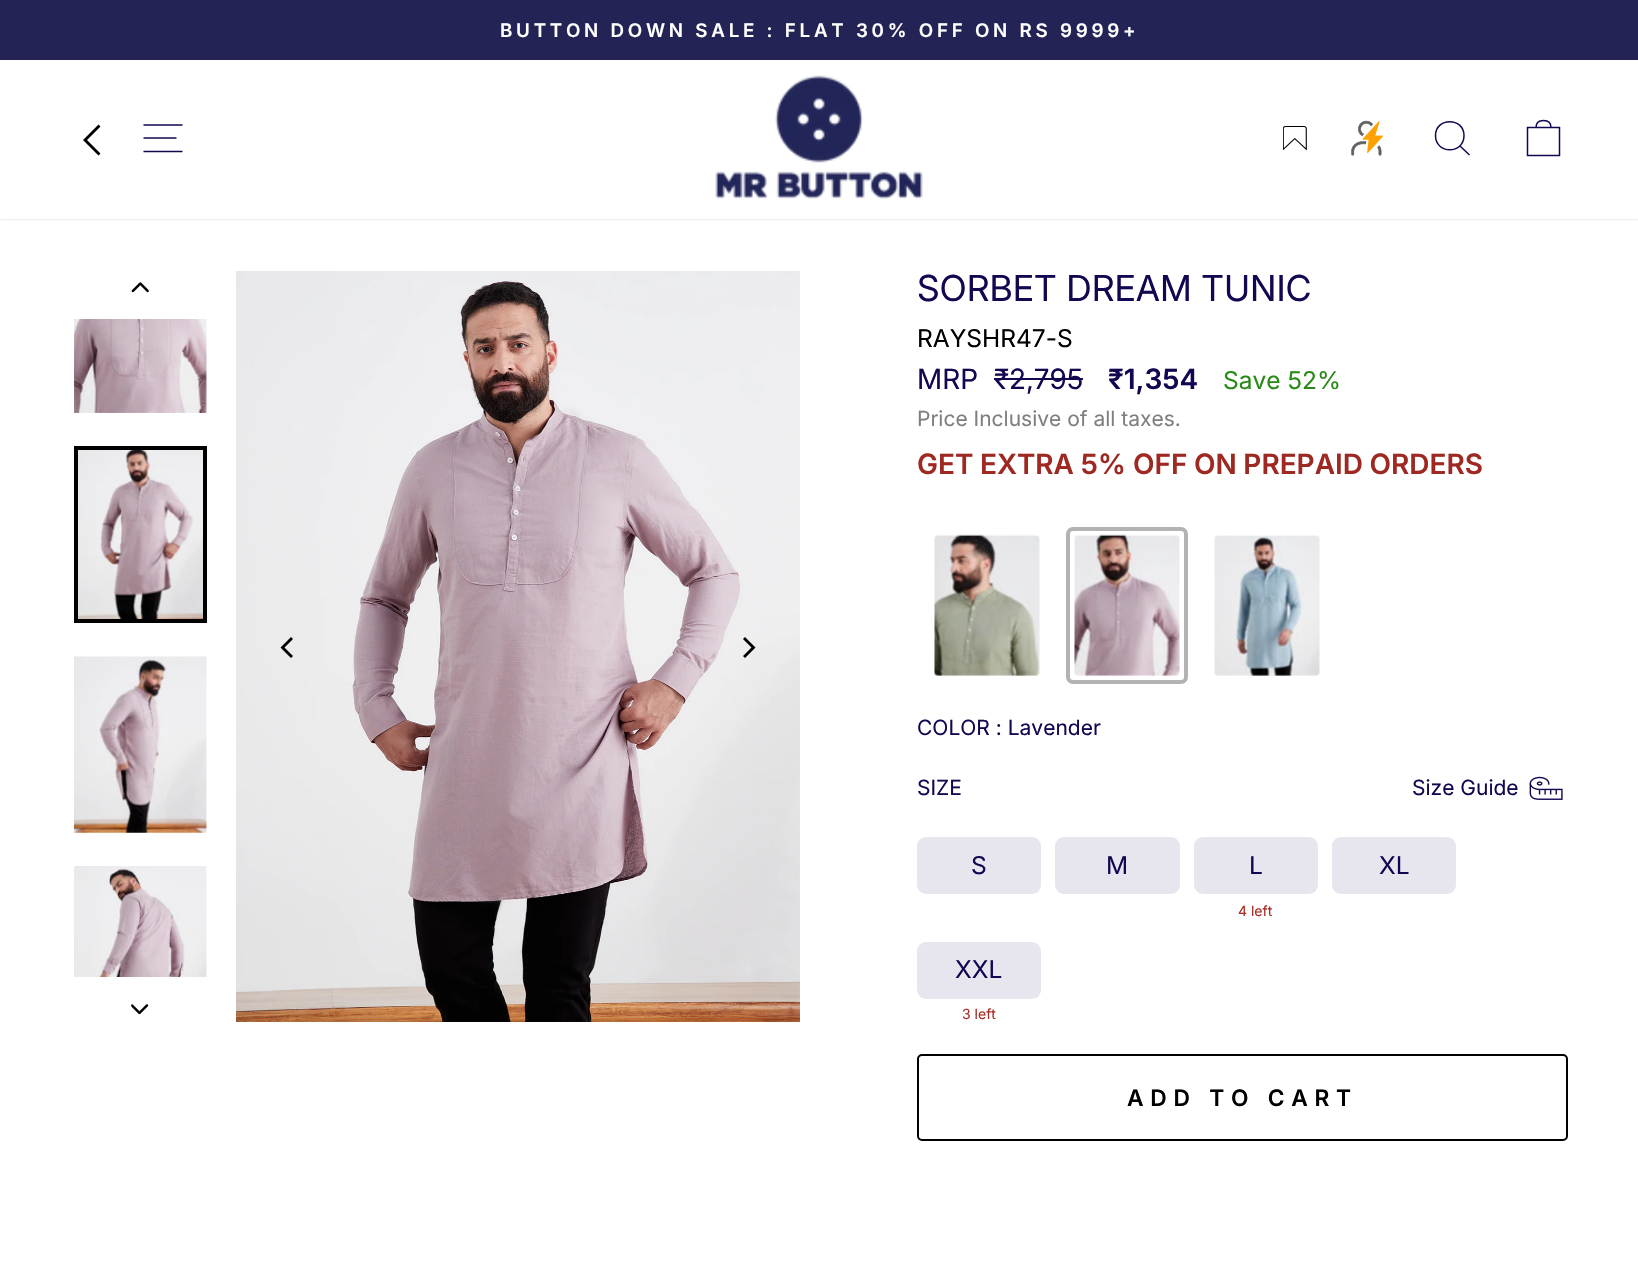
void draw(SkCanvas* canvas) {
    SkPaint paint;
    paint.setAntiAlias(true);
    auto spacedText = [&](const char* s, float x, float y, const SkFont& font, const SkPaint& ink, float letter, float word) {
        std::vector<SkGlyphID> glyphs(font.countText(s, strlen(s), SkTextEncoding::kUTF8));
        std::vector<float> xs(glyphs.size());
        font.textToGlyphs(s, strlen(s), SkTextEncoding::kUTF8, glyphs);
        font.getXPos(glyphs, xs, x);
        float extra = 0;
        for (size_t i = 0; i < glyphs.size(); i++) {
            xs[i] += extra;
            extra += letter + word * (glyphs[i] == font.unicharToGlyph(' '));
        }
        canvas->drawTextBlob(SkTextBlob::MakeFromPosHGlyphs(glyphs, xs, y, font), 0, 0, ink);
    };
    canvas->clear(0xFFFFFFFF);
    paint.setColor(0x33000000);
    paint.setMaskFilter(SkMaskFilter::MakeBlur(kNormal_SkBlurStyle, 1));
    canvas->drawRect(SkRect::MakeXYWH(0, 56, 1638, 163), paint);
    paint.setMaskFilter(nullptr);
    paint.setColor(0xFF242355);
    canvas->drawRect(SkRect::MakeXYWH(0, 0, 1638, 60), paint);
    SkFont font1(fontMgr->matchFamilyStyle("Inter", SkFontStyle(600, SkFontStyle::kNormal_Width, SkFontStyle::kUpright_Slant)), 18.75f);
    font1.setSubpixel(true);
    paint.setColor(0xFFFFFFFF);
    spacedText("BUTTON DOWN SALE : FLAT 30% OFF ON RS 9999+", 500, 37, font1, paint, 3.75f, 0);
    canvas->drawRect(SkRect::MakeXYWH(0, 60, 1638, 159), paint);
    paint.setColor(0xFF000000);
    canvas->drawPath(SkPathBuilder().moveTo(87, 140).lineTo(100.5f, 126.5f).lineTo(98.5f, 124.5f).lineTo(83, 140).lineTo(98.5f, 155.5f).lineTo(100.5f, 153.5f).close().detach(), paint);
    paint.setStyle(SkPaint::kStroke_Style);
    paint.setStrokeWidth(1.5f);
    paint.setColor(0xFF120751);
    canvas->drawPath(SkPathBuilder().moveTo(143.5f, 125).lineTo(182.5f, 125).moveTo(143.5f, 138).lineTo(176.5f, 138).moveTo(143.5f, 151.5f).lineTo(182.5f, 151.5f).detach(), paint);
    canvas->drawImageRect(SkImages::DeferredFromEncodedData(SkData::MakeFromFileName("img1.png")), SkRect::MakeXYWH(715, 75, 208, 124), SkSamplingOptions());
    canvas->drawImageRect(SkImages::DeferredFromEncodedData(SkData::MakeFromFileName("img2.png")), SkRect::MakeXYWH(1283, 126, 24, 25), SkSamplingOptions());
    canvas->drawImageRect(SkImages::DeferredFromEncodedData(SkData::MakeFromFileName("img3.png")), SkRect::MakeXYWH(1351, 120, 32, 36), SkSamplingOptions());
    canvas->drawPath(SkPathBuilder().moveTo(1464, 135.5f).cubicTo(1464, 154.5f, 1435.5f, 154.5f, 1435.5f, 135.5f).cubicTo(1435.5f, 117, 1464, 117, 1464, 135.5f).close().moveTo(1469.5f, 155).lineTo(1460, 146).detach(), paint);
    canvas->drawPath(SkPathBuilder().moveTo(1527.5f, 127.5f).lineTo(1559.5f, 127.5f).lineTo(1559.5f, 155.5f).lineTo(1527.5f, 155.5f).close().moveTo(1536, 127.5f).cubicTo(1536, 122, 1539.5f, 120.5f, 1543.5f, 120.5f).cubicTo(1547.5f, 120.5f, 1551, 122, 1551, 127.5f).detach(), paint);
    canvas->drawImageRect(SkImages::DeferredFromEncodedData(SkData::MakeFromFileName("img4.png")), SkRect::MakeXYWH(131, 282, 18, 11), SkSamplingOptions());
    canvas->drawImageRect(SkImages::DeferredFromEncodedData(SkData::MakeFromFileName("img5.png")), SkRect::MakeXYWH(74, 319, 133, 94), SkSamplingOptions());
    canvas->drawImageRect(SkImages::DeferredFromEncodedData(SkData::MakeFromFileName("img6.png")), SkRect::MakeXYWH(78, 450, 125, 169), SkSamplingOptions());
    paint.setStrokeWidth(4);
    paint.setColor(0xFF000000);
    canvas->drawRect(SkRect::MakeXYWH(76, 448, 129, 173), paint);
    canvas->drawImageRect(SkImages::DeferredFromEncodedData(SkData::MakeFromFileName("img7.png")), SkRect::MakeXYWH(74, 656, 133, 177), SkSamplingOptions());
    canvas->drawImageRect(SkImages::DeferredFromEncodedData(SkData::MakeFromFileName("img8.png")), SkRect::MakeXYWH(74, 866, 133, 111), SkSamplingOptions());
    canvas->drawImageRect(SkImages::DeferredFromEncodedData(SkData::MakeFromFileName("img9.png")), SkRect::MakeXYWH(131, 1004, 18, 11), SkSamplingOptions());
    canvas->drawImageRect(SkImages::DeferredFromEncodedData(SkData::MakeFromFileName("img11.png")), SkRect::MakeXYWH(799, 271, 1, 751), SkSamplingOptions());
    canvas->drawImageRect(SkImages::DeferredFromEncodedData(SkData::MakeFromFileName("img10.png")), SkRect::MakeXYWH(236, 271, 564, 751), SkSamplingOptions());
    paint.setStyle(SkPaint::kFill_Style);
    canvas->drawPath(SkPathBuilder().moveTo(280.5f, 647.5f).lineTo(291, 658).lineTo(293, 656).lineTo(284.5f, 647.5f).lineTo(293, 639).lineTo(291, 637).close().detach(), paint);
    canvas->drawPath(SkPathBuilder().moveTo(755.5f, 647.5f).lineTo(745, 637).lineTo(743, 639).lineTo(751.5f, 647.5f).lineTo(743, 656).lineTo(745, 658).close().detach(), paint);
    SkFont font2(fontMgr->matchFamilyStyle("Inter", SkFontStyle::Normal()), 35.75f);
    font2.setSubpixel(true);
    paint.setColor(0xFF120751);
    canvas->drawString("SORBET DREAM TUNIC", 917, 301, font2, paint);
    SkFont font3(fontMgr->matchFamilyStyle("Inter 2", SkFontStyle::Normal()), 24.5f);
    font3.setSubpixel(true);
    paint.setColor(0xFF000000);
    canvas->drawString("RAYSHR47-S", 917, 347, font3, paint);
    SkFont font4(fontMgr->matchFamilyStyle("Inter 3", SkFontStyle::Normal()), 28);
    font4.setSubpixel(true);
    paint.setColor(0xFF120751);
    canvas->drawString("MRP", 917, 389, font4, paint);
    canvas->drawString("₹2,795", 994, 389, font4, paint);
    canvas->drawRect(SkRect::MakeXYWH(994, 378, 89, 2), paint);
    SkFont font5(fontMgr->matchFamilyStyle("Inter", SkFontStyle(600, SkFontStyle::kNormal_Width, SkFontStyle::kUpright_Slant)), 28);
    font5.setSubpixel(true);
    canvas->drawString("₹1,354", 1108, 389, font5, paint);
    paint.setColor(0xFF288A17);
    canvas->drawString("Save 52%", 1223, 389, font3, paint);
    SkFont font6(fontMgr->matchFamilyStyle("Inter 2", SkFontStyle::Normal()), 21);
    font6.setSubpixel(true);
    paint.setColor(0xFF7F7F7F);
    canvas->drawString("Price Inclusive of all taxes.", 917, 426, font6, paint);
    paint.setColor(0xFF9E2923);
    canvas->drawString("GET", 917, 474, font5, paint);
    SkFont font7(fontMgr->matchFamilyStyle("Inter 2", SkFontStyle(600, SkFontStyle::kNormal_Width, SkFontStyle::kUpright_Slant)), 28);
    font7.setSubpixel(true);
    canvas->drawString("EXTRA 5%", 980, 474, font7, paint);
    spacedText("OFF ON PREPAID ORDERS", 1133, 474, font5, paint, 0, -0.5f);
    canvas->drawImageRect(SkImages::DeferredFromEncodedData(SkData::MakeFromFileName("img12.png")), SkRect::MakeXYWH(934, 534, 106, 142), SkSamplingOptions());
    paint.setStyle(SkPaint::kStroke_Style);
    paint.setColor(0xFFB3B3B3);
    canvas->drawRoundRect(SkRect::MakeXYWH(1068, 529, 118, 153), 5, 5, paint);
    canvas->drawImageRect(SkImages::DeferredFromEncodedData(SkData::MakeFromFileName("img13.png")), SkRect::MakeXYWH(1074, 534, 106, 142), SkSamplingOptions());
    canvas->drawImageRect(SkImages::DeferredFromEncodedData(SkData::MakeFromFileName("img14.png")), SkRect::MakeXYWH(1214, 535, 106, 141), SkSamplingOptions());
    paint.setStyle(SkPaint::kFill_Style);
    paint.setColor(0xFF120751);
    canvas->drawString("COLOR : Lavender", 917, 735, font6, paint);
    canvas->drawString("SIZE", 917, 795, font6, paint);
    canvas->drawString("Size Guide", 1412, 795, font6, paint);
    canvas->drawImageRect(SkImages::DeferredFromEncodedData(SkData::MakeFromFileName("img15.png")), SkRect::MakeXYWH(1529, 776, 34, 24), SkSamplingOptions());
    paint.setColor(0xFFE7E6EE);
    canvas->drawRoundRect(SkRect::MakeXYWH(917, 837, 124, 57), 9, 9, paint);
    paint.setColor(0xFF120751);
    canvas->drawString("S", 971, 874, font3, paint);
    paint.setColor(0xFFE7E6EE);
    canvas->drawRoundRect(SkRect::MakeXYWH(1055, 837, 125, 57), 9, 9, paint);
    paint.setColor(0xFF120751);
    canvas->drawString("M", 1106, 874, font3, paint);
    paint.setColor(0xFFE7E6EE);
    canvas->drawRoundRect(SkRect::MakeXYWH(1194, 837, 124, 57), 9, 9, paint);
    paint.setColor(0xFF120751);
    canvas->drawString("L", 1249, 874, font3, paint);
    SkFont font8(fontMgr->matchFamilyStyle("Inter 2", SkFontStyle::Normal()), 14);
    font8.setSubpixel(true);
    paint.setColor(0xFFA72D25);
    canvas->drawString("4 left", 1238, 916, font8, paint);
    paint.setColor(0xFFE7E6EE);
    canvas->drawRoundRect(SkRect::MakeXYWH(1332, 837, 124, 57), 9, 9, paint);
    paint.setColor(0xFF120751);
    canvas->drawString("XL", 1379, 874, font3, paint);
    paint.setColor(0xFFE7E6EE);
    canvas->drawRoundRect(SkRect::MakeXYWH(917, 942, 124, 57), 9, 9, paint);
    paint.setColor(0xFF120751);
    canvas->drawString("XXL", 955, 978, font3, paint);
    paint.setColor(0xFFA72D25);
    canvas->drawString("3 left", 962, 1019, font8, paint);
    paint.setStyle(SkPaint::kStroke_Style);
    paint.setStrokeWidth(2);
    paint.setColor(0xFF000000);
    canvas->drawRoundRect(SkRect::MakeXYWH(918, 1055, 649, 85), 4, 4, paint);
    SkFont font9(fontMgr->matchFamilyStyle("Inter", SkFontStyle(600, SkFontStyle::kNormal_Width, SkFontStyle::kUpright_Slant)), 22.75f);
    font9.setSubpixel(true);
    paint.setStyle(SkPaint::kFill_Style);
    spacedText("ADD TO CART", 1127, 1106, font9, paint, 6.75f, 0);
}
